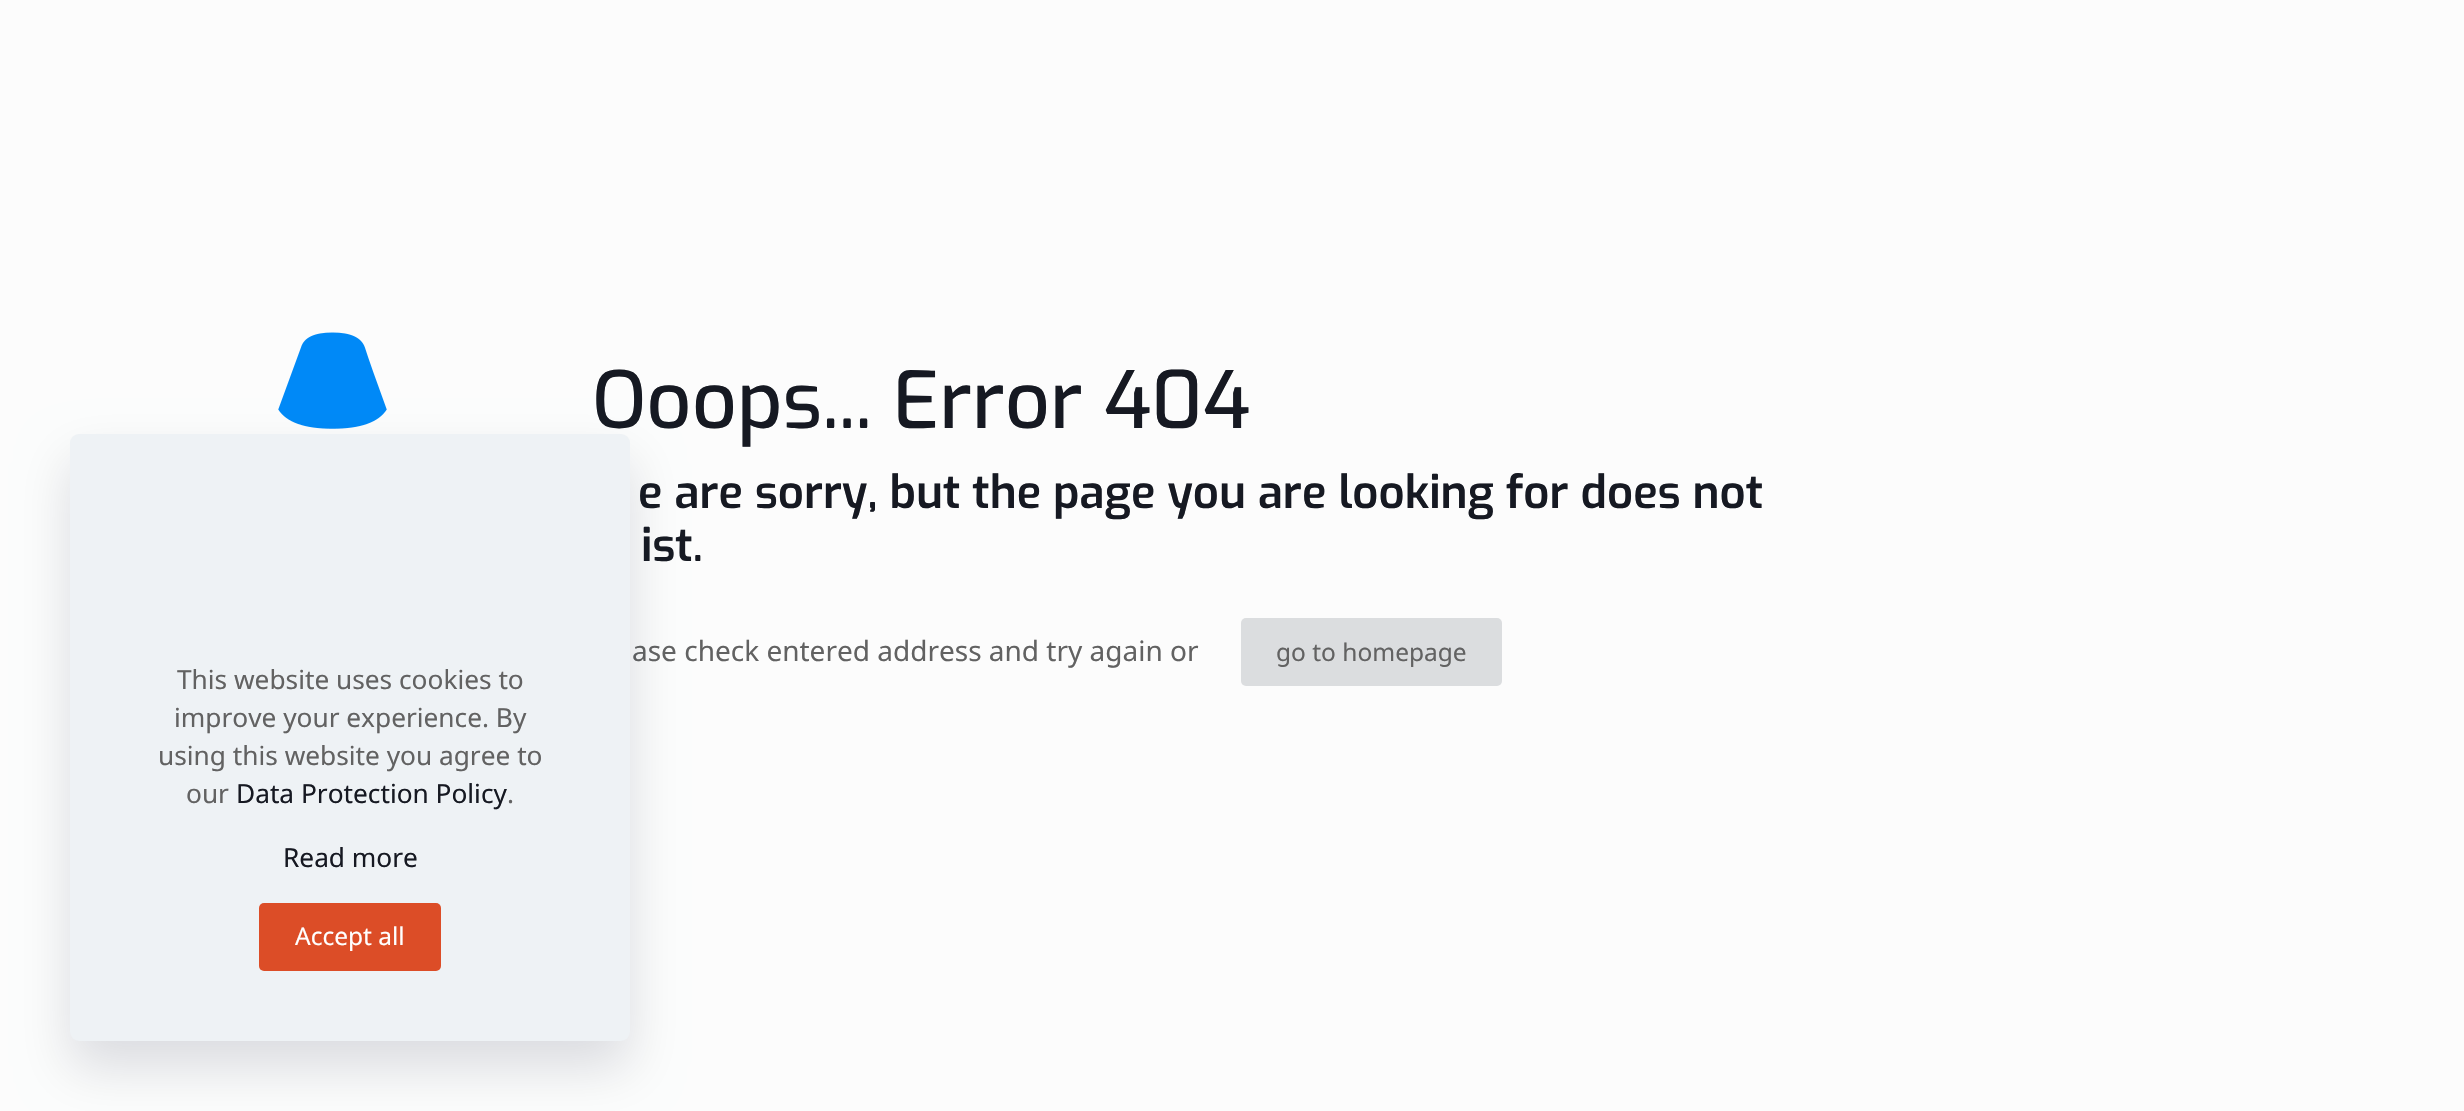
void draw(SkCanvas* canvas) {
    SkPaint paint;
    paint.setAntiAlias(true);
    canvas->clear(0xFFFCFCFC);
    canvas->drawImageRect(SkImages::DeferredFromEncodedData(SkData::MakeFromFileName("img1.png")), SkRect::MakeXYWH(278, 332, 109, 97), SkSamplingOptions());
    SkFont font1(fontMgr->matchFamilyStyle("Exo", SkFontStyle(500, SkFontStyle::kNormal_Width, SkFontStyle::kUpright_Slant)), 78.75f);
    font1.setSubpixel(true);
    paint.setColor(0xFF161922);
    canvas->drawString("Ooops... Error 404", 592, 428, font1, paint);
    SkFont font2(fontMgr->matchFamilyStyle("Exo", SkFontStyle(600, SkFontStyle::kNormal_Width, SkFontStyle::kUpright_Slant)), 45.5f);
    font2.setSubpixel(true);
    canvas->drawString("e are sorry, but the page you are looking for does not", 638, 508, font2, paint);
    canvas->drawString("ist.", 641, 561, font2, paint);
    SkFont font3(fontMgr->matchFamilyStyle("Noto Sans", SkFontStyle::Normal()), 28);
    font3.setSubpixel(true);
    paint.setColor(0xFF626262);
    canvas->drawString("ase check entered address and try again or", 632, 661, font3, paint);
    paint.setColor(0xFFDBDDDF);
    canvas->drawRoundRect(SkRect::MakeXYWH(1241, 618, 261, 68), 5, 5, paint);
    SkFont font4(fontMgr->matchFamilyStyle("Noto Sans", SkFontStyle::Normal()), 24.5f);
    font4.setSubpixel(true);
    paint.setColor(0xFF626262);
    canvas->drawString("go to homepage", 1276, 661, font4, paint);
    paint.setColor(0x21010727);
    paint.setMaskFilter(SkMaskFilter::MakeBlur(kNormal_SkBlurStyle, 26));
    canvas->drawRoundRect(SkRect::MakeXYWH(70, 460, 560, 608), 9, 9, paint);
    paint.setMaskFilter(nullptr);
    paint.setColor(0xFFEEF2F5);
    canvas->drawRoundRect(SkRect::MakeXYWH(70, 434, 560, 607), 9, 9, paint);
    SkFont font5(fontMgr->matchFamilyStyle("Noto Sans", SkFontStyle::Normal()), 26.25f);
    font5.setSubpixel(true);
    paint.setColor(0xFF626262);
    canvas->drawString("This website uses cookies to", 177, 689, font5, paint);
    canvas->drawString("improve your experience. By", 174, 727, font5, paint);
    canvas->drawString("using this website you agree to", 158, 765, font5, paint);
    canvas->drawString("our", 186, 803, font5, paint);
    paint.setColor(0xFF161922);
    canvas->drawString("Data Protection Policy", 236, 803, font5, paint);
    paint.setColor(0xFF626262);
    canvas->drawString(".", 507, 803, font5, paint);
    paint.setColor(0xFF161922);
    canvas->drawString("Read more", 283, 867, font5, paint);
    paint.setColor(0xFFDC4D27);
    canvas->drawRoundRect(SkRect::MakeXYWH(259, 903, 182, 68), 5, 5, paint);
    paint.setColor(0xFFFFFFFF);
    canvas->drawString("Accept all", 295, 945, font4, paint);
}
